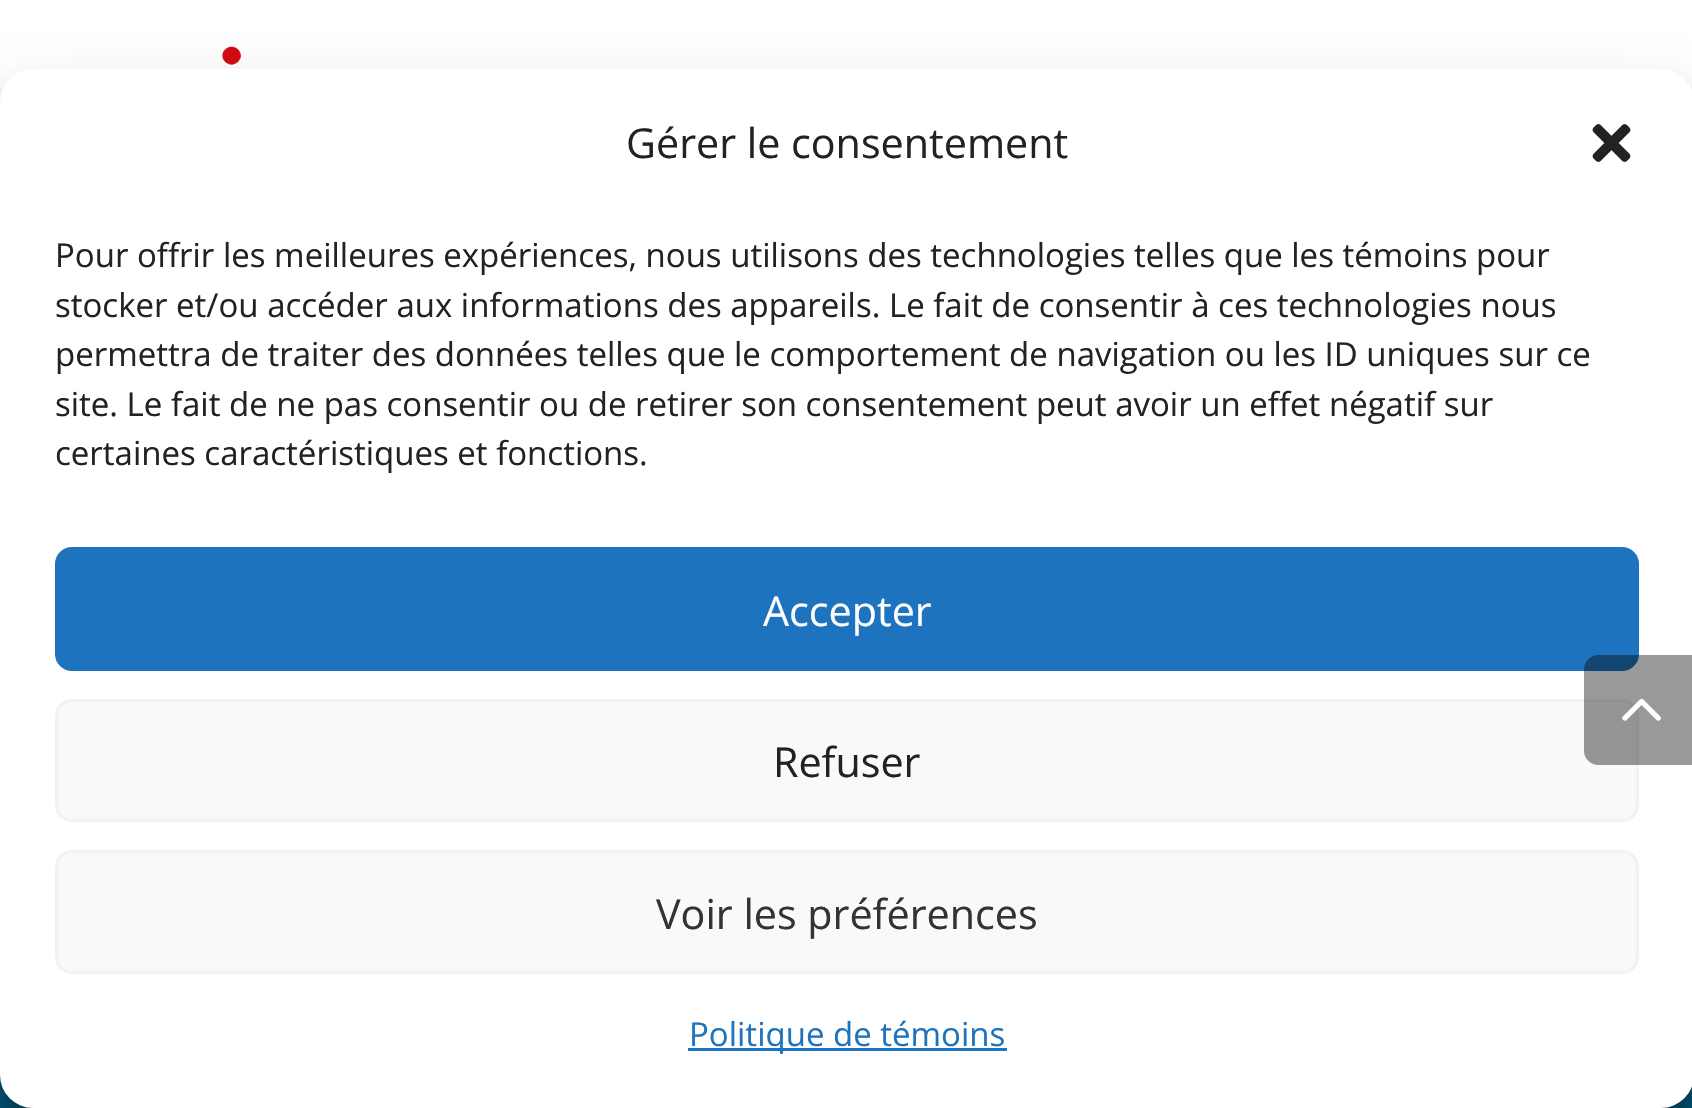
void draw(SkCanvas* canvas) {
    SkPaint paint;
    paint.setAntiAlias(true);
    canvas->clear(0xFF00597C);
    paint.setColor(0xFFFFFFFF);
    canvas->drawRect(SkRect::MakeXYWH(0, 0, 1692, 102), paint);
    canvas->drawImageRect(SkImages::DeferredFromEncodedData(SkData::MakeFromFileName("img1.png")), SkRect::MakeXYWH(221, 46, 21, 19), SkSamplingOptions());
    paint.setColor(0x3B000000);
    paint.setMaskFilter(SkMaskFilter::MakeBlur(kNormal_SkBlurStyle, 8));
    canvas->drawRoundRect(SkRect::MakeXYWH(0, 85, 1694, 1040), 33, 33, paint);
    paint.setMaskFilter(nullptr);
    paint.setColor(0x30000000);
    paint.setMaskFilter(SkMaskFilter::MakeBlur(kNormal_SkBlurStyle, 27.5f));
    canvas->drawRoundRect(SkRect::MakeXYWH(0, 96, 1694, 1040), 33, 33, paint);
    paint.setMaskFilter(nullptr);
    paint.setColor(0xFFFFFFFF);
    canvas->drawRoundRect(SkRect::MakeXYWH(0, 69, 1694, 1039), 33, 33, paint);
    SkFont font1(fontMgr->matchFamilyStyle("Open Sans", SkFontStyle::Normal()), 41.25f);
    font1.setSubpixel(true);
    paint.setColor(0xFF222222);
    canvas->drawString("Gérer le consentement", 626, 158, font1, paint);
    canvas->drawImageRect(SkImages::DeferredFromEncodedData(SkData::MakeFromFileName("img2.png")), SkRect::MakeXYWH(1592, 124, 39, 38), SkSamplingOptions());
    SkFont font2(fontMgr->matchFamilyStyle("Open Sans", SkFontStyle::Normal()), 33);
    font2.setSubpixel(true);
    canvas->drawString("Pour offrir les meilleures expériences, nous utilisons des technologies telles que les témoins pour", 55, 267, font2, paint);
    canvas->drawString("stocker et/ou accéder aux informations des appareils. Le fait de consentir à ces technologies nous", 55, 317, font2, paint);
    canvas->drawString("permettra de traiter des données telles que le comportement de navigation ou les ID uniques sur ce", 55, 366, font2, paint);
    canvas->drawString("site. Le fait de ne pas consentir ou de retirer son consentement peut avoir un effet négatif sur", 55, 416, font2, paint);
    canvas->drawString("certaines caractéristiques et fonctions.", 55, 465, font2, paint);
    paint.setColor(0xFF1E73BE);
    canvas->drawRoundRect(SkRect::MakeXYWH(56.5f, 548.5f, 1581, 121), 15.5f, 15.5f, paint);
    paint.setStyle(SkPaint::kStroke_Style);
    paint.setStrokeWidth(3);
    canvas->drawRoundRect(SkRect::MakeXYWH(56.5f, 548.5f, 1581, 121), 15.5f, 15.5f, paint);
    paint.setStyle(SkPaint::kFill_Style);
    paint.setColor(0xFFFFFFFF);
    canvas->drawString("Accepter", 763, 626, font1, paint);
    paint.setColor(0xFFF9F9F9);
    canvas->drawRoundRect(SkRect::MakeXYWH(56.5f, 700.5f, 1581, 120), 15.5f, 15.5f, paint);
    paint.setStyle(SkPaint::kStroke_Style);
    paint.setColor(0xFFF2F2F2);
    canvas->drawRoundRect(SkRect::MakeXYWH(56.5f, 700.5f, 1581, 120), 15.5f, 15.5f, paint);
    paint.setStyle(SkPaint::kFill_Style);
    paint.setColor(0xFF222222);
    canvas->drawString("Refuser", 773, 777, font1, paint);
    paint.setColor(0xFFF9F9F9);
    canvas->drawRoundRect(SkRect::MakeXYWH(56.5f, 851.5f, 1581, 121), 15.5f, 15.5f, paint);
    paint.setStyle(SkPaint::kStroke_Style);
    paint.setColor(0xFFF2F2F2);
    canvas->drawRoundRect(SkRect::MakeXYWH(56.5f, 851.5f, 1581, 121), 15.5f, 15.5f, paint);
    paint.setStyle(SkPaint::kFill_Style);
    paint.setColor(0xFF333333);
    canvas->drawString("Voir les préférences", 656, 929, font1, paint);
    paint.setColor(0xFF1E73BE);
    canvas->drawRect(SkRect::MakeXYWH(688, 1048, 319, 3), paint);
    canvas->drawString("Politique de témoins", 689, 1046, font2, paint);
    paint.setColor(0x66000000);
    canvas->drawPath(SkPathBuilder().moveTo(1598, 655).lineTo(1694, 655).lineTo(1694, 765).lineTo(1598, 765).cubicTo(1590.5f, 765, 1584, 758.5f, 1584, 751).lineTo(1584, 669).cubicTo(1584, 661.5f, 1590.5f, 655, 1598, 655).close().detach(), paint);
    canvas->drawImageRect(SkImages::DeferredFromEncodedData(SkData::MakeFromFileName("img3.png")), SkRect::MakeXYWH(1622, 698, 39, 23), SkSamplingOptions());
}
